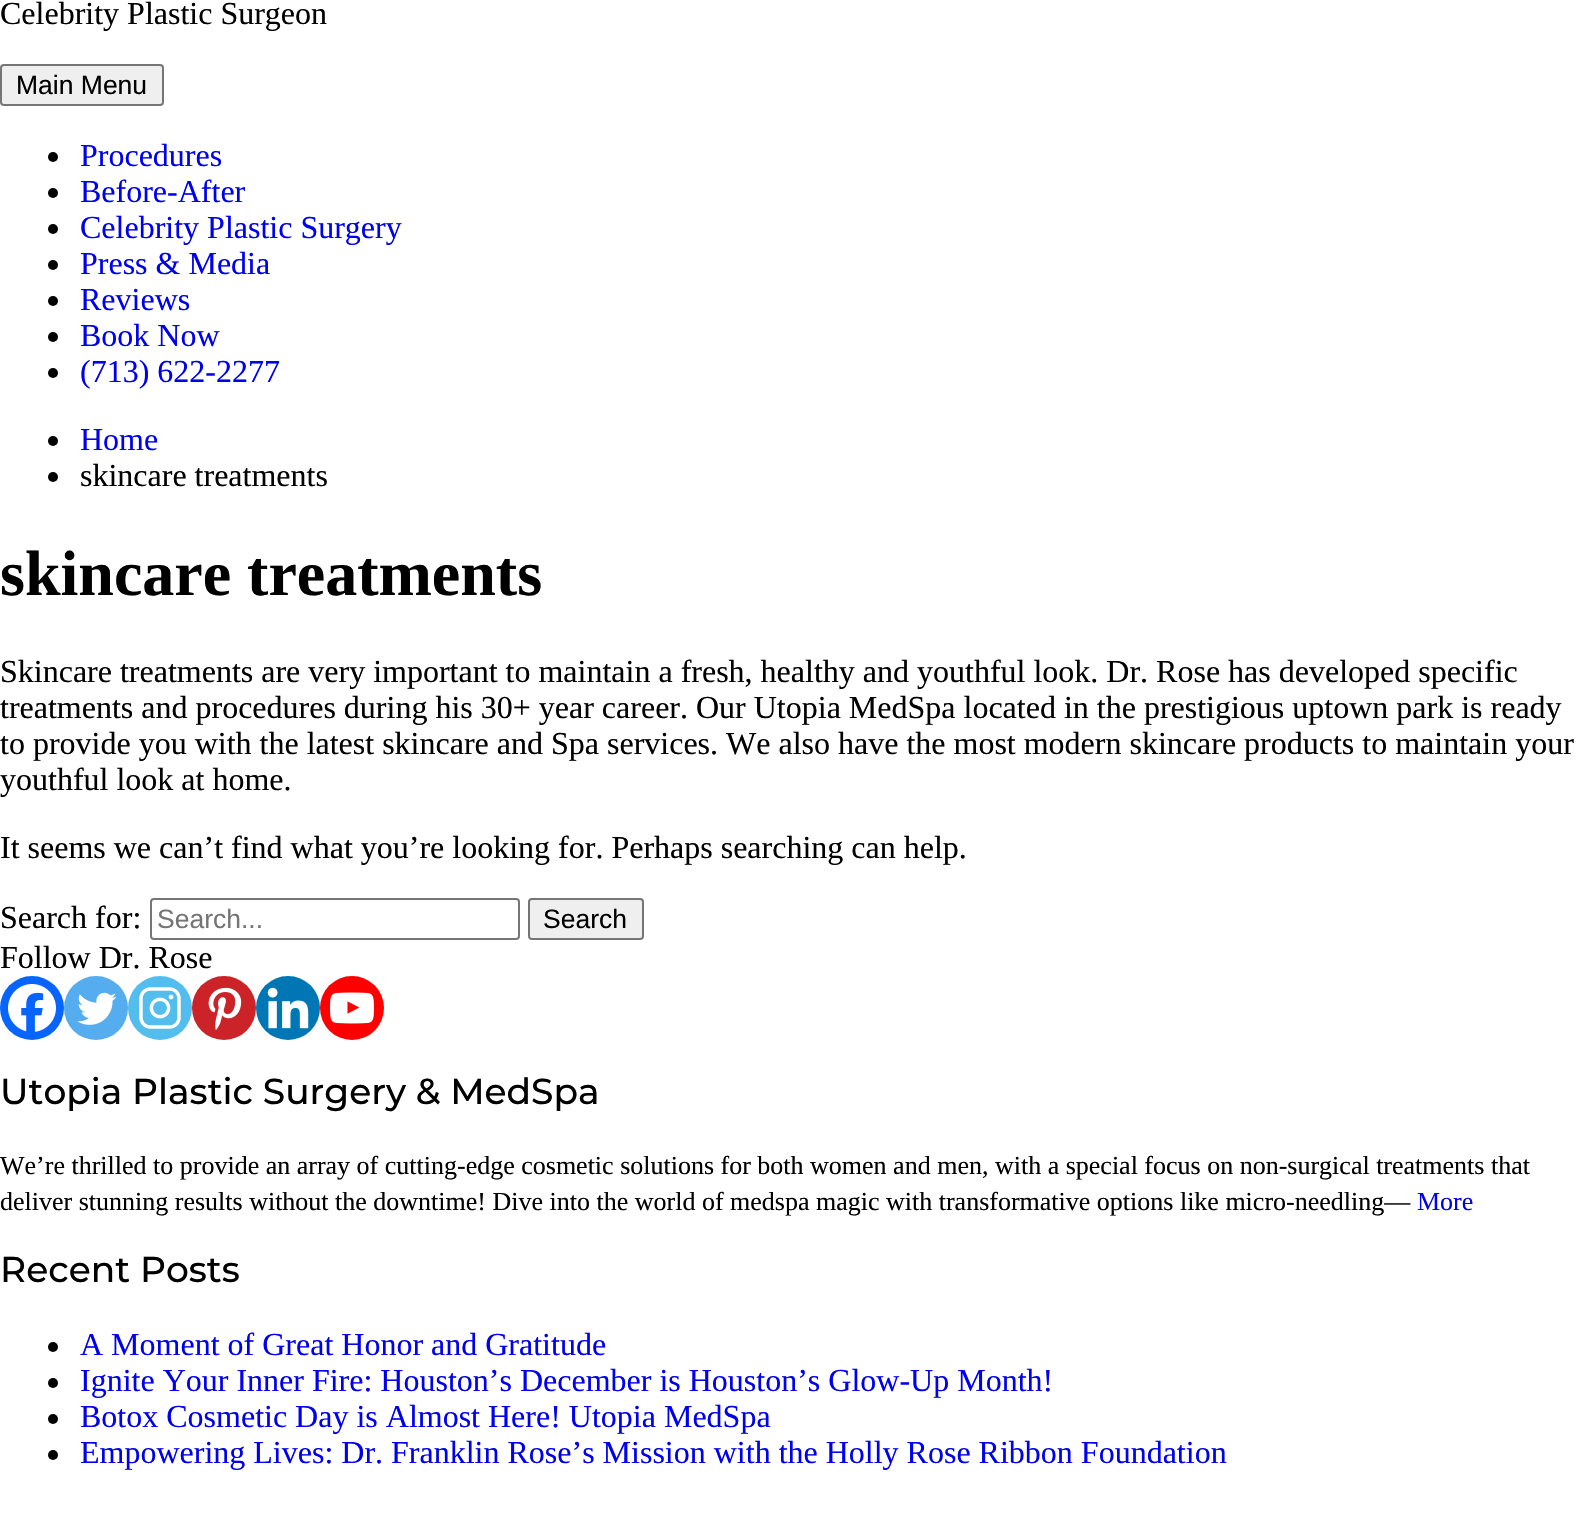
void draw(SkCanvas* canvas) {
    SkPaint paint;
    paint.setAntiAlias(true);
    canvas->clear(0xFFFFFFFF);
    SkFont font1(fontMgr->matchFamilyStyle("Liberation Serif", SkFontStyle::Normal()), 32);
    font1.setSubpixel(true);
    paint.setColor(0xFF000000);
    canvas->drawString("Celebrity Plastic Surgeon", 0, 24, font1, paint);
    paint.setColor(0xFFEFEFEF);
    canvas->drawRoundRect(SkRect::MakeXYWH(1, 65, 162, 40), 3, 3, paint);
    paint.setStyle(SkPaint::kStroke_Style);
    paint.setStrokeWidth(2);
    paint.setColor(0xFF767676);
    canvas->drawRoundRect(SkRect::MakeXYWH(1, 65, 162, 40), 3, 3, paint);
    SkFont font2(fontMgr->matchFamilyStyle("Liberation Sans", SkFontStyle::Normal()), 26.5f);
    font2.setSubpixel(true);
    paint.setStyle(SkPaint::kFill_Style);
    paint.setColor(0xFF000000);
    canvas->drawString("Main Menu", 16, 94, font2, paint);
    canvas->drawCircle(53, 157, 5, paint);
    paint.setColor(0xFF0000EE);
    canvas->drawString("Procedures", 80, 166, font1, paint);
    paint.setColor(0xFF000000);
    canvas->drawCircle(53, 193, 5, paint);
    paint.setColor(0xFF0000EE);
    canvas->drawString("Before-After", 80, 202, font1, paint);
    paint.setColor(0xFF000000);
    canvas->drawCircle(53, 229, 5, paint);
    paint.setColor(0xFF0000EE);
    canvas->drawString("Celebrity Plastic Surgery", 80, 238, font1, paint);
    paint.setColor(0xFF000000);
    canvas->drawCircle(53, 265, 5, paint);
    paint.setColor(0xFF0000EE);
    canvas->drawString("Press & Media", 80, 274, font1, paint);
    paint.setColor(0xFF000000);
    canvas->drawCircle(53, 301, 5, paint);
    paint.setColor(0xFF0000EE);
    canvas->drawString("Reviews", 80, 310, font1, paint);
    paint.setColor(0xFF000000);
    canvas->drawCircle(53, 337, 5, paint);
    paint.setColor(0xFF0000EE);
    canvas->drawString("Book Now", 80, 346, font1, paint);
    paint.setColor(0xFF000000);
    canvas->drawCircle(53, 373, 5, paint);
    paint.setColor(0xFF0000EE);
    canvas->drawString("(713) 622-2277", 80, 382, font1, paint);
    paint.setColor(0xFF000000);
    canvas->drawCircle(53, 441, 5, paint);
    paint.setColor(0xFF0000EE);
    canvas->drawString("Home", 80, 450, font1, paint);
    paint.setColor(0xFF000000);
    canvas->drawCircle(53, 477, 5, paint);
    canvas->drawString("skincare treatments", 80, 486, font1, paint);
    SkFont font3(fontMgr->matchFamilyStyle("Liberation Serif", SkFontStyle::Bold()), 64);
    font3.setSubpixel(true);
    canvas->drawString("skincare treatments", 0, 595, font3, paint);
    canvas->drawString("Skincare treatments are very important to maintain a fresh, healthy and youthful look. Dr. Rose has developed specific", 0, 682, font1, paint);
    canvas->drawString("treatments and procedures during his 30+ year career. Our Utopia MedSpa located in the prestigious uptown park is ready", 0, 718, font1, paint);
    canvas->drawString("to provide you with the latest skincare and Spa services. We also have the most modern skincare products to maintain your", 0, 754, font1, paint);
    canvas->drawString("youthful look at home.", 0, 790, font1, paint);
    canvas->drawString("It seems we can’t find what you’re looking for. Perhaps searching can help.", 0, 858, font1, paint);
    canvas->drawString("Search for:", 0, 928, font1, paint);
    paint.setStyle(SkPaint::kStroke_Style);
    paint.setColor(0xFF767676);
    canvas->drawRoundRect(SkRect::MakeXYWH(151, 899, 368, 40), 3, 3, paint);
    paint.setStyle(SkPaint::kFill_Style);
    paint.setColor(0xFF757575);
    canvas->drawString("Search...", 157, 928, font2, paint);
    paint.setColor(0xFFEFEFEF);
    canvas->drawRoundRect(SkRect::MakeXYWH(529, 899, 114, 40), 3, 3, paint);
    paint.setStyle(SkPaint::kStroke_Style);
    paint.setColor(0xFF767676);
    canvas->drawRoundRect(SkRect::MakeXYWH(529, 899, 114, 40), 3, 3, paint);
    paint.setStyle(SkPaint::kFill_Style);
    paint.setColor(0xFF000000);
    canvas->drawString("Search", 543, 928, font2, paint);
    canvas->drawString("Follow Dr. Rose", 0, 968, font1, paint);
    paint.setColor(0xFF0765FE);
    canvas->drawCircle(32, 1008, 32, paint);
    canvas->drawImageRect(SkImages::DeferredFromEncodedData(SkData::MakeFromFileName("img1.png")), SkRect::MakeXYWH(8, 984, 48, 48), SkSamplingOptions());
    paint.setColor(0xFF55ACEE);
    canvas->drawCircle(96, 1008, 32, paint);
    canvas->drawImageRect(SkImages::DeferredFromEncodedData(SkData::MakeFromFileName("img2.png")), SkRect::MakeXYWH(77, 992, 40, 33), SkSamplingOptions());
    paint.setColor(0xFF53BEEE);
    canvas->drawCircle(160, 1008, 32, paint);
    canvas->drawImageRect(SkImages::DeferredFromEncodedData(SkData::MakeFromFileName("img3.png")), SkRect::MakeXYWH(139, 987, 42, 42), SkSamplingOptions());
    paint.setColor(0xFFCC2329);
    canvas->drawCircle(224, 1008, 32, paint);
    canvas->drawImageRect(SkImages::DeferredFromEncodedData(SkData::MakeFromFileName("img4.png")), SkRect::MakeXYWH(208, 987, 34, 43), SkSamplingOptions());
    paint.setColor(0xFF0077B5);
    canvas->drawCircle(288, 1008, 32, paint);
    canvas->drawImageRect(SkImages::DeferredFromEncodedData(SkData::MakeFromFileName("img5.png")), SkRect::MakeXYWH(267, 987, 42, 42), SkSamplingOptions());
    paint.setColor(0xFFFF0000);
    canvas->drawCircle(352, 1008, 32, paint);
    canvas->drawImageRect(SkImages::DeferredFromEncodedData(SkData::MakeFromFileName("img6.png")), SkRect::MakeXYWH(330, 992, 44, 32), SkSamplingOptions());
    SkFont font4(fontMgr->matchFamilyStyle("Montserrat", SkFontStyle(500, SkFontStyle::kNormal_Width, SkFontStyle::kUpright_Slant)), 36);
    font4.setSubpixel(true);
    paint.setColor(0xFF000000);
    canvas->drawString("Utopia Plastic Surgery & MedSpa", 0, 1104, font4, paint);
    SkFont font5(fontMgr->matchFamilyStyle("Liberation Serif", SkFontStyle::Normal()), 26);
    font5.setSubpixel(true);
    canvas->drawString("We’re thrilled to provide an array of cutting-edge cosmetic solutions for both women and men, with a special focus on non-surgical treatments that", 0, 1174, font5, paint);
    canvas->drawString("deliver stunning results without the downtime! Dive into the world of medspa magic with transformative options like micro-needling—", 0, 1210, font5, paint);
    paint.setColor(0xFF0000EE);
    canvas->drawString("More", 1417, 1210, font5, paint);
    paint.setColor(0xFF000000);
    canvas->drawString("Recent Posts", 0, 1282, font4, paint);
    canvas->drawCircle(53, 1347, 5, paint);
    paint.setColor(0xFF0000EE);
    canvas->drawString("A Moment of Great Honor and Gratitude", 80, 1355, font1, paint);
    paint.setColor(0xFF000000);
    canvas->drawCircle(53, 1383, 5, paint);
    paint.setColor(0xFF0000EE);
    canvas->drawString("Ignite Your Inner Fire: Houston’s December is Houston’s Glow-Up Month!", 80, 1391, font1, paint);
    paint.setColor(0xFF000000);
    canvas->drawCircle(53, 1419, 5, paint);
    paint.setColor(0xFF0000EE);
    canvas->drawString("Botox Cosmetic Day is Almost Here! Utopia MedSpa", 80, 1427, font1, paint);
    paint.setColor(0xFF000000);
    canvas->drawCircle(53, 1455, 5, paint);
    paint.setColor(0xFF0000EE);
    canvas->drawString("Empowering Lives: Dr. Franklin Rose’s Mission with the Holly Rose Ribbon Foundation", 80, 1463, font1, paint);
}
